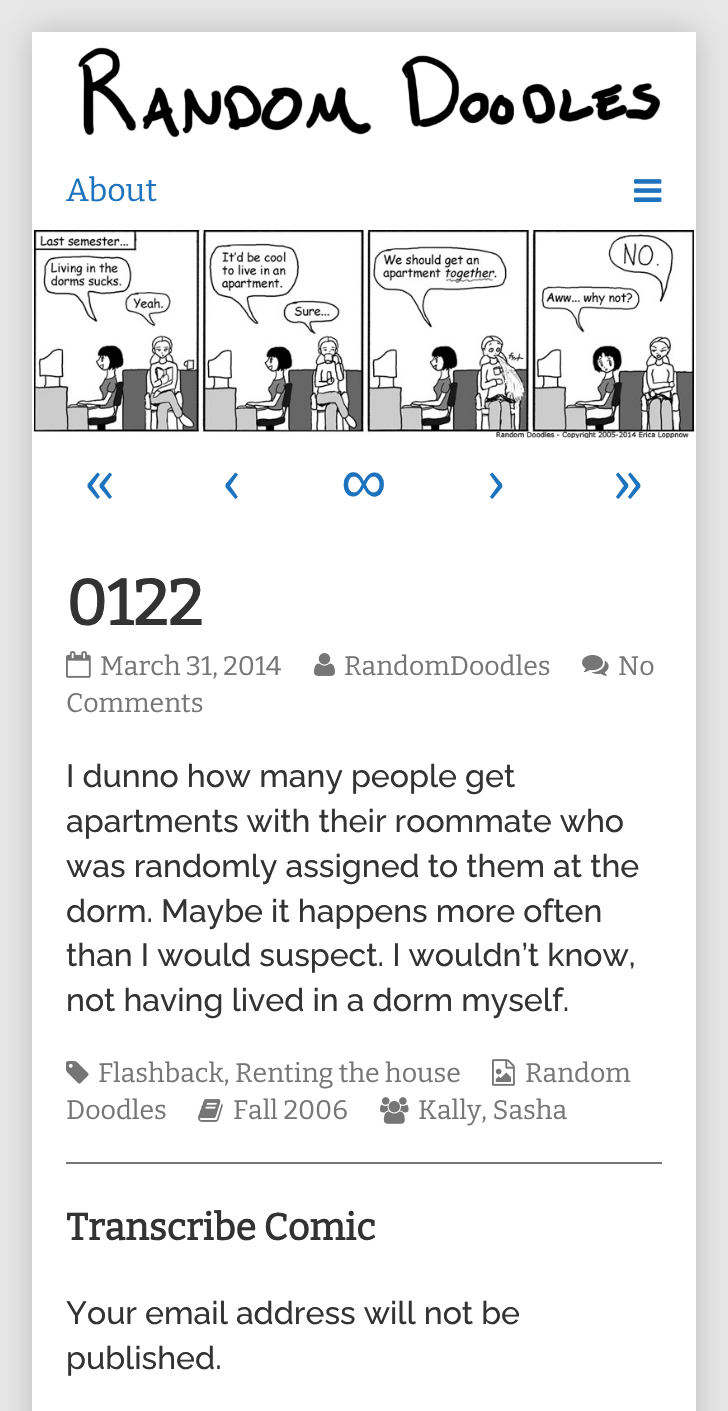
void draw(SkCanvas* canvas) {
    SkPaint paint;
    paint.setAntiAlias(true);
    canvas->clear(0xFFE8E8E8);
    paint.setColor(0x33000000);
    paint.setMaskFilter(SkMaskFilter::MakeBlur(kNormal_SkBlurStyle, 16));
    canvas->drawRect(SkRect::MakeXYWH(32, 32, 664, 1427), paint);
    paint.setMaskFilter(nullptr);
    paint.setColor(0xFFFFFFFF);
    canvas->drawRect(SkRect::MakeXYWH(32, 32, 664, 1379), paint);
    canvas->drawImageRect(SkImages::DeferredFromEncodedData(SkData::MakeFromFileName("img1.png")), SkRect::MakeXYWH(77, 37, 584, 101), SkSamplingOptions());
    SkFont font1(fontMgr->matchFamilyStyle("Bitter", SkFontStyle(100, SkFontStyle::kNormal_Width, SkFontStyle::kUpright_Slant)), 32);
    font1.setSubpixel(true);
    paint.setColor(0xFF1E73BE);
    canvas->drawString("About", 66, 201, font1, paint);
    canvas->drawImageRect(SkImages::DeferredFromEncodedData(SkData::MakeFromFileName("img2.png")), SkRect::MakeXYWH(634, 179, 28, 23), SkSamplingOptions());
    canvas->drawImageRect(SkImages::DeferredFromEncodedData(SkData::MakeFromFileName("img3.png")), SkRect::MakeXYWH(34, 230, 660, 208), SkSamplingOptions());
    SkFont font2(fontMgr->matchFamilyStyle("Bitter", SkFontStyle(100, SkFontStyle::kNormal_Width, SkFontStyle::kUpright_Slant)), 64);
    font2.setSubpixel(true);
    canvas->drawString("«", 84, 503, font2, paint);
    canvas->drawString("‹", 222, 503, font2, paint);
    SkFont font3(fontMgr->matchFamilyStyle("Liberation Sans", SkFontStyle::Normal()), 64);
    font3.setSubpixel(true);
    canvas->drawString("∞", 341, 503, font3, paint);
    canvas->drawString("›", 486, 503, font2, paint);
    canvas->drawString("»", 612, 503, font2, paint);
    SkFont font4(fontMgr->matchFamilyStyle("Bitter", SkFontStyle::Bold()), 64);
    font4.setSubpixel(true);
    paint.setColor(0xFF333333);
    canvas->drawString("0122", 66, 625, font4, paint);
    canvas->drawImageRect(SkImages::DeferredFromEncodedData(SkData::MakeFromFileName("img4.png")), SkRect::MakeXYWH(66, 651, 25, 27), SkSamplingOptions());
    SkFont font5(fontMgr->matchFamilyStyle("Bitter", SkFontStyle(100, SkFontStyle::kNormal_Width, SkFontStyle::kUpright_Slant)), 26.7f);
    font5.setSubpixel(true);
    paint.setColor(0xFF767676);
    canvas->drawString("March 31, 2014", 100, 675, font5, paint);
    canvas->drawImageRect(SkImages::DeferredFromEncodedData(SkData::MakeFromFileName("img5.png")), SkRect::MakeXYWH(314, 653, 21, 23), SkSamplingOptions());
    canvas->drawString("RandomDoodles", 344, 675, font5, paint);
    canvas->drawImageRect(SkImages::DeferredFromEncodedData(SkData::MakeFromFileName("img6.png")), SkRect::MakeXYWH(582, 655, 27, 21), SkSamplingOptions());
    canvas->drawString("No", 618, 675, font5, paint);
    canvas->drawString("Comments", 66, 712, font5, paint);
    SkFont font6(fontMgr->matchFamilyStyle("Raleway", SkFontStyle(100, SkFontStyle::kNormal_Width, SkFontStyle::kUpright_Slant)), 32);
    font6.setSubpixel(true);
    paint.setColor(0xFF333333);
    canvas->drawString("I dunno how many people get", 66, 787, font6, paint);
    canvas->drawString("apartments with their roommate who", 66, 832, font6, paint);
    canvas->drawString("was randomly assigned to them at the", 66, 877, font6, paint);
    canvas->drawString("dorm. Maybe it happens more often", 66, 922, font6, paint);
    canvas->drawString("than I would suspect. I wouldn’t know,", 66, 966, font6, paint);
    canvas->drawString("not having lived in a dorm myself.", 66, 1011, font6, paint);
    paint.setColor(0xFF767676);
    canvas->drawRect(SkRect::MakeXYWH(66, 1162, 596, 2), paint);
    canvas->drawImageRect(SkImages::DeferredFromEncodedData(SkData::MakeFromFileName("img7.png")), SkRect::MakeXYWH(66, 1061, 23, 23), SkSamplingOptions());
    canvas->drawString("Flashback, Renting the house", 98, 1082, font5, paint);
    canvas->drawImageRect(SkImages::DeferredFromEncodedData(SkData::MakeFromFileName("img8.png")), SkRect::MakeXYWH(492, 1059, 23, 27), SkSamplingOptions());
    canvas->drawString("Random", 525, 1082, font5, paint);
    canvas->drawString("Doodles", 66, 1119, font5, paint);
    canvas->drawImageRect(SkImages::DeferredFromEncodedData(SkData::MakeFromFileName("img9.png")), SkRect::MakeXYWH(198, 1099, 25, 23), SkSamplingOptions());
    canvas->drawString("Fall 2006", 233, 1119, font5, paint);
    canvas->drawImageRect(SkImages::DeferredFromEncodedData(SkData::MakeFromFileName("img10.png")), SkRect::MakeXYWH(380, 1097, 29, 27), SkSamplingOptions());
    canvas->drawString("Kally, Sasha", 418, 1119, font5, paint);
    SkFont font7(fontMgr->matchFamilyStyle("Bitter", SkFontStyle::Bold()), 37.5f);
    font7.setSubpixel(true);
    paint.setColor(0xFF333333);
    canvas->drawString("Transcribe Comic", 66, 1240, font7, paint);
    canvas->drawString("Your email address will not be", 66, 1324, font6, paint);
    canvas->drawString("published.", 66, 1369, font6, paint);
}
